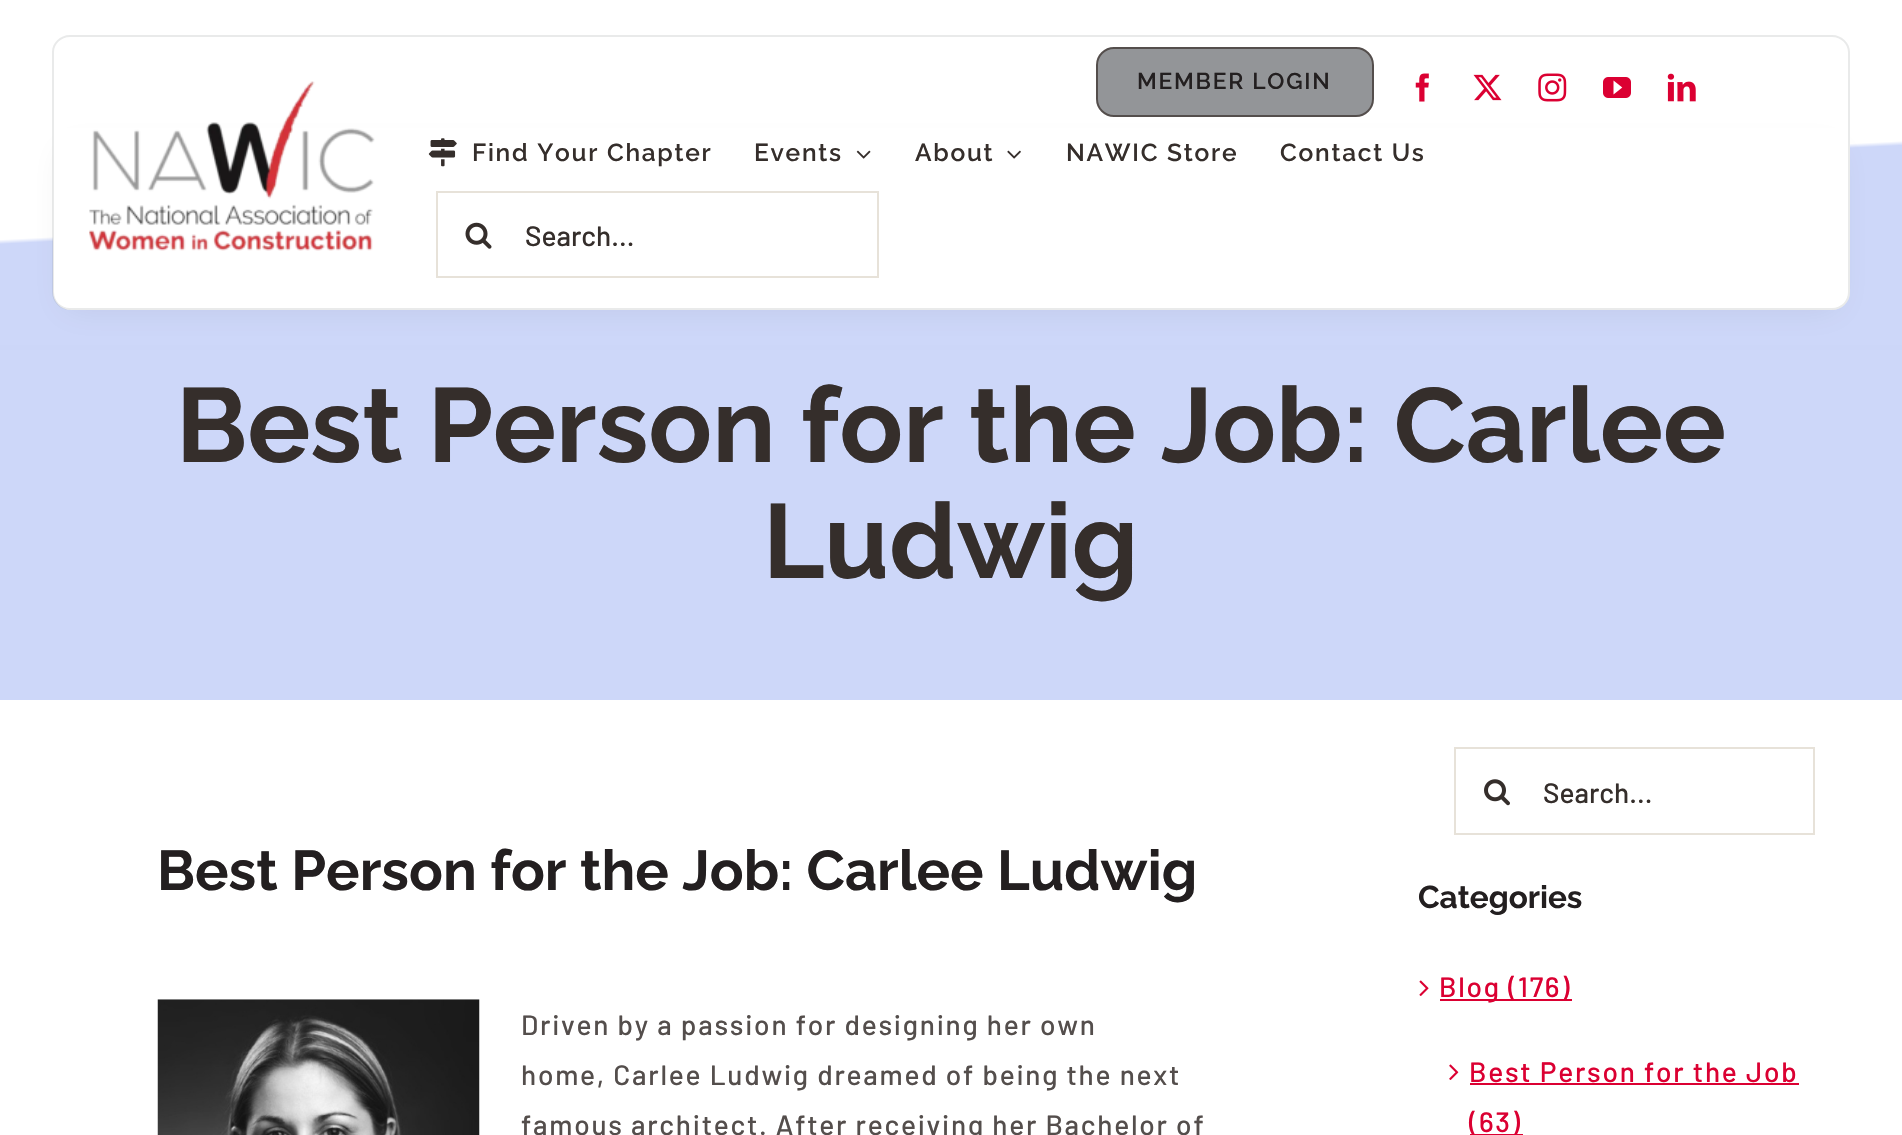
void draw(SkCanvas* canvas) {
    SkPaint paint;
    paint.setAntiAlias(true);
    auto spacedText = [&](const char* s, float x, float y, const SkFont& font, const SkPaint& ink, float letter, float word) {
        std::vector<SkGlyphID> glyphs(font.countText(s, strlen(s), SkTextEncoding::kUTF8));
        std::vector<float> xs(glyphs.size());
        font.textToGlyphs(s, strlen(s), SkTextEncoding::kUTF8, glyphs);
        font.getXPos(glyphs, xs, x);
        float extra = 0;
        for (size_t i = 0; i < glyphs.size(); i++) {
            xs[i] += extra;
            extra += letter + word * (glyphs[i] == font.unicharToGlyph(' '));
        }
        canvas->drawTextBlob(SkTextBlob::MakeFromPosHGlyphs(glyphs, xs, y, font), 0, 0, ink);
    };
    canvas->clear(0xFFFFFFFF);
    {
        const SkColor colors[] = {0xFFFFFFFF, 0xFFCDD7F9};
        const float stops[] = {0.54f, 0.55f};
        const SkPoint ends[] = {{940, -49}, {963, 394}};
        paint.setShader(SkGradientShader::MakeLinear(ends, colors, stops, 2, SkTileMode::kClamp));
        paint.setAlpha(255);
    }
    canvas->drawRect(SkRect::MakeXYWH(0, 141, 1902, 204), paint);
    paint.setShader(nullptr);
    paint.setColor(0xFFE9EAEA);
    canvas->drawPath(SkPathBuilder(SkPathFillType::kEvenOdd).moveTo(70, 35).lineTo(1400, 35).lineTo(1400, 128).lineTo(52, 128).lineTo(52, 52).cubicTo(52, 43, 60, 35, 70, 35).close().moveTo(70, 37).lineTo(1400, 37).lineTo(1400, 128).lineTo(54, 128).lineTo(54, 52).cubicTo(54, 44, 61, 37, 70, 37).close().detach(), paint);
    canvas->drawPath(SkPathBuilder(SkPathFillType::kEvenOdd).moveTo(1400, 35).lineTo(1832, 35).cubicTo(1842, 35, 1850, 43, 1850, 52).lineTo(1850, 128).lineTo(1400, 128).close().moveTo(1400, 37).lineTo(1832, 37).cubicTo(1841, 37, 1848, 44, 1848, 52).lineTo(1848, 128).lineTo(1400, 128).close().detach(), paint);
    canvas->drawImageRect(SkImages::DeferredFromEncodedData(SkData::MakeFromFileName("img1.png")), SkRect::MakeXYWH(1415, 73, 14, 29), SkSamplingOptions());
    canvas->drawImageRect(SkImages::DeferredFromEncodedData(SkData::MakeFromFileName("img2.png")), SkRect::MakeXYWH(1473, 74, 29, 27), SkSamplingOptions());
    canvas->drawImageRect(SkImages::DeferredFromEncodedData(SkData::MakeFromFileName("img3.png")), SkRect::MakeXYWH(1538, 73, 29, 29), SkSamplingOptions());
    canvas->drawImageRect(SkImages::DeferredFromEncodedData(SkData::MakeFromFileName("img4.png")), SkRect::MakeXYWH(1603, 77, 28, 21), SkSamplingOptions());
    canvas->drawImageRect(SkImages::DeferredFromEncodedData(SkData::MakeFromFileName("img5.png")), SkRect::MakeXYWH(1667, 73, 29, 29), SkSamplingOptions());
    paint.setColor(0xFFCDD7F9);
    canvas->drawRect(SkRect::MakeXYWH(0, 350, 1902, 350), paint);
    paint.setColor(0xFFCCD6F8);
    canvas->drawRect(SkRect::MakeXYWH(0, 345, 1902, 5), paint);
    paint.setColor(0x12231F20);
    paint.setMaskFilter(SkMaskFilter::MakeBlur(kNormal_SkBlurStyle, 17.5f));
    canvas->drawRoundRect(SkRect::MakeXYWH(63, 149, 1776, 161), 7, 7, paint);
    paint.setMaskFilter(nullptr);
    paint.setColor(0xFF939598);
    canvas->drawRoundRect(SkRect::MakeXYWH(1097, 48, 276, 68), 17, 17, paint);
    paint.setStyle(SkPaint::kStroke_Style);
    paint.setStrokeWidth(2);
    paint.setColor(0xFF544E4C);
    canvas->drawRoundRect(SkRect::MakeXYWH(1097, 48, 276, 68), 17, 17, paint);
    SkFont font1(fontMgr->matchFamilyStyle("Raleway", SkFontStyle(600, SkFontStyle::kNormal_Width, SkFontStyle::kUpright_Slant)), 22.75f);
    font1.setSubpixel(true);
    paint.setStyle(SkPaint::kFill_Style);
    paint.setColor(0xFF231F20);
    spacedText("MEMBER LOGIN", 1137, 89, font1, paint, 1.75f, 0);
    paint.setColor(0xFFFFFFFF);
    canvas->drawPath(SkPathBuilder().moveTo(53, 128).lineTo(1850, 128).lineTo(1850, 292).cubicTo(1850, 302, 1842, 310, 1832, 310).lineTo(71, 310).cubicTo(61, 310, 53, 302, 53, 292).close().detach(), paint);
    paint.setColor(0x33939598);
    canvas->drawPath(SkPathBuilder(SkPathFillType::kEvenOdd).moveTo(52, 128).lineTo(1850, 128).lineTo(1850, 292).cubicTo(1850, 302, 1842, 310, 1832, 310).lineTo(70, 310).cubicTo(60, 310, 52, 302, 52, 292).close().moveTo(54, 128).lineTo(1848, 128).lineTo(1848, 292).cubicTo(1848, 301, 1841, 308, 1832, 308).lineTo(70, 308).cubicTo(61, 308, 54, 301, 54, 292).close().detach(), paint);
    canvas->drawImageRect(SkImages::DeferredFromEncodedData(SkData::MakeFromFileName("img6.png")), SkRect::MakeXYWH(89, 81, 286, 170), SkSamplingOptions());
    canvas->drawImageRect(SkImages::DeferredFromEncodedData(SkData::MakeFromFileName("img7.png")), SkRect::MakeXYWH(428, 138, 29, 29), SkSamplingOptions());
    SkFont font2(fontMgr->matchFamilyStyle("Raleway", SkFontStyle(600, SkFontStyle::kNormal_Width, SkFontStyle::kUpright_Slant)), 24.5f);
    font2.setSubpixel(true);
    paint.setColor(0xFF352E2B);
    spacedText("Find Your Chapter", 472, 161, font2, paint, 1.75f, 0);
    spacedText("Events", 754, 161, font2, paint, 1.75f, 0);
    canvas->drawImageRect(SkImages::DeferredFromEncodedData(SkData::MakeFromFileName("img8.png")), SkRect::MakeXYWH(856, 150, 15, 9), SkSamplingOptions());
    spacedText("About", 915, 161, font2, paint, 1.75f, 0);
    canvas->drawImageRect(SkImages::DeferredFromEncodedData(SkData::MakeFromFileName("img9.png")), SkRect::MakeXYWH(1007, 150, 14, 9), SkSamplingOptions());
    spacedText("NAWIC Store", 1066, 161, font2, paint, 1.75f, 0);
    spacedText("Contact Us", 1280, 161, font2, paint, 1.75f, 0);
    paint.setStyle(SkPaint::kStroke_Style);
    paint.setColor(0xFFE7E2D9);
    canvas->drawRect(SkRect::MakeXYWH(437, 192, 441, 85), paint);
    canvas->drawImageRect(SkImages::DeferredFromEncodedData(SkData::MakeFromFileName("img10.png")), SkRect::MakeXYWH(465, 222, 27, 27), SkSamplingOptions());
    SkFont font3(fontMgr->matchFamilyStyle("Barlow", SkFontStyle(500, SkFontStyle::kNormal_Width, SkFontStyle::kUpright_Slant)), 28);
    font3.setSubpixel(true);
    paint.setStyle(SkPaint::kFill_Style);
    paint.setColor(0xFF352E2B);
    canvas->drawString("Search...", 525, 246, font3, paint);
    SkFont font4(fontMgr->matchFamilyStyle("Raleway", SkFontStyle::Bold()), 105);
    font4.setSubpixel(true);
    canvas->drawString("Best Person for the Job: Carlee", 176, 462, font4, paint);
    canvas->drawString("Ludwig", 763, 578, font4, paint);
    SkFont font5(fontMgr->matchFamilyStyle("Raleway", SkFontStyle::Bold()), 56);
    font5.setSubpixel(true);
    paint.setColor(0xFF231F20);
    canvas->drawString("Best Person for the Job: Carlee Ludwig", 157, 890, font5, paint);
    canvas->drawImageRect(SkImages::DeferredFromEncodedData(SkData::MakeFromFileName("img11.png")), SkRect::MakeXYWH(157, 999, 323, 136), SkSamplingOptions());
    paint.setColor(0xFF544E4C);
    spacedText("Driven by a passion for designing her own", 521, 1035, font3, paint, 1.75f, 0);
    spacedText("home, Carlee Ludwig dreamed of being the next", 521, 1085, font3, paint, 1.75f, 0);
    spacedText("famous architect. After receiving her Bachelor of", 521, 1135, font3, paint, 1.75f, 0);
    paint.setStyle(SkPaint::kStroke_Style);
    paint.setColor(0xFFE7E2D9);
    canvas->drawRect(SkRect::MakeXYWH(1455, 748, 359, 86), paint);
    canvas->drawImageRect(SkImages::DeferredFromEncodedData(SkData::MakeFromFileName("img12.png")), SkRect::MakeXYWH(1484, 779, 26, 27), SkSamplingOptions());
    paint.setStyle(SkPaint::kFill_Style);
    paint.setColor(0xFF352E2B);
    canvas->drawString("Search...", 1543, 803, font3, paint);
    SkFont font6(fontMgr->matchFamilyStyle("Raleway", SkFontStyle::Bold()), 31.5f);
    font6.setSubpixel(true);
    paint.setColor(0xFF231F20);
    canvas->drawString("Categories", 1418, 908, font6, paint);
    canvas->drawImageRect(SkImages::DeferredFromEncodedData(SkData::MakeFromFileName("img13.png")), SkRect::MakeXYWH(1419, 980, 10, 16), SkSamplingOptions());
    paint.setColor(0xFFDB0032);
    canvas->drawRect(SkRect::MakeXYWH(1440, 999, 132, 2), paint);
    spacedText("Blog (176)", 1439, 997, font3, paint, 1.75f, 0);
    canvas->drawImageRect(SkImages::DeferredFromEncodedData(SkData::MakeFromFileName("img14.png")), SkRect::MakeXYWH(1449, 1064, 10, 16), SkSamplingOptions());
    spacedText("Best Person for the Job", 1469, 1082, font3, paint, 1.75f, 0);
    canvas->drawRect(SkRect::MakeXYWH(1470, 1083, 329, 2), paint);
    canvas->drawRect(SkRect::MakeXYWH(1470, 1134, 53, 1), paint);
    spacedText("(63)", 1469, 1132, font3, paint, 1.75f, 0);
}
